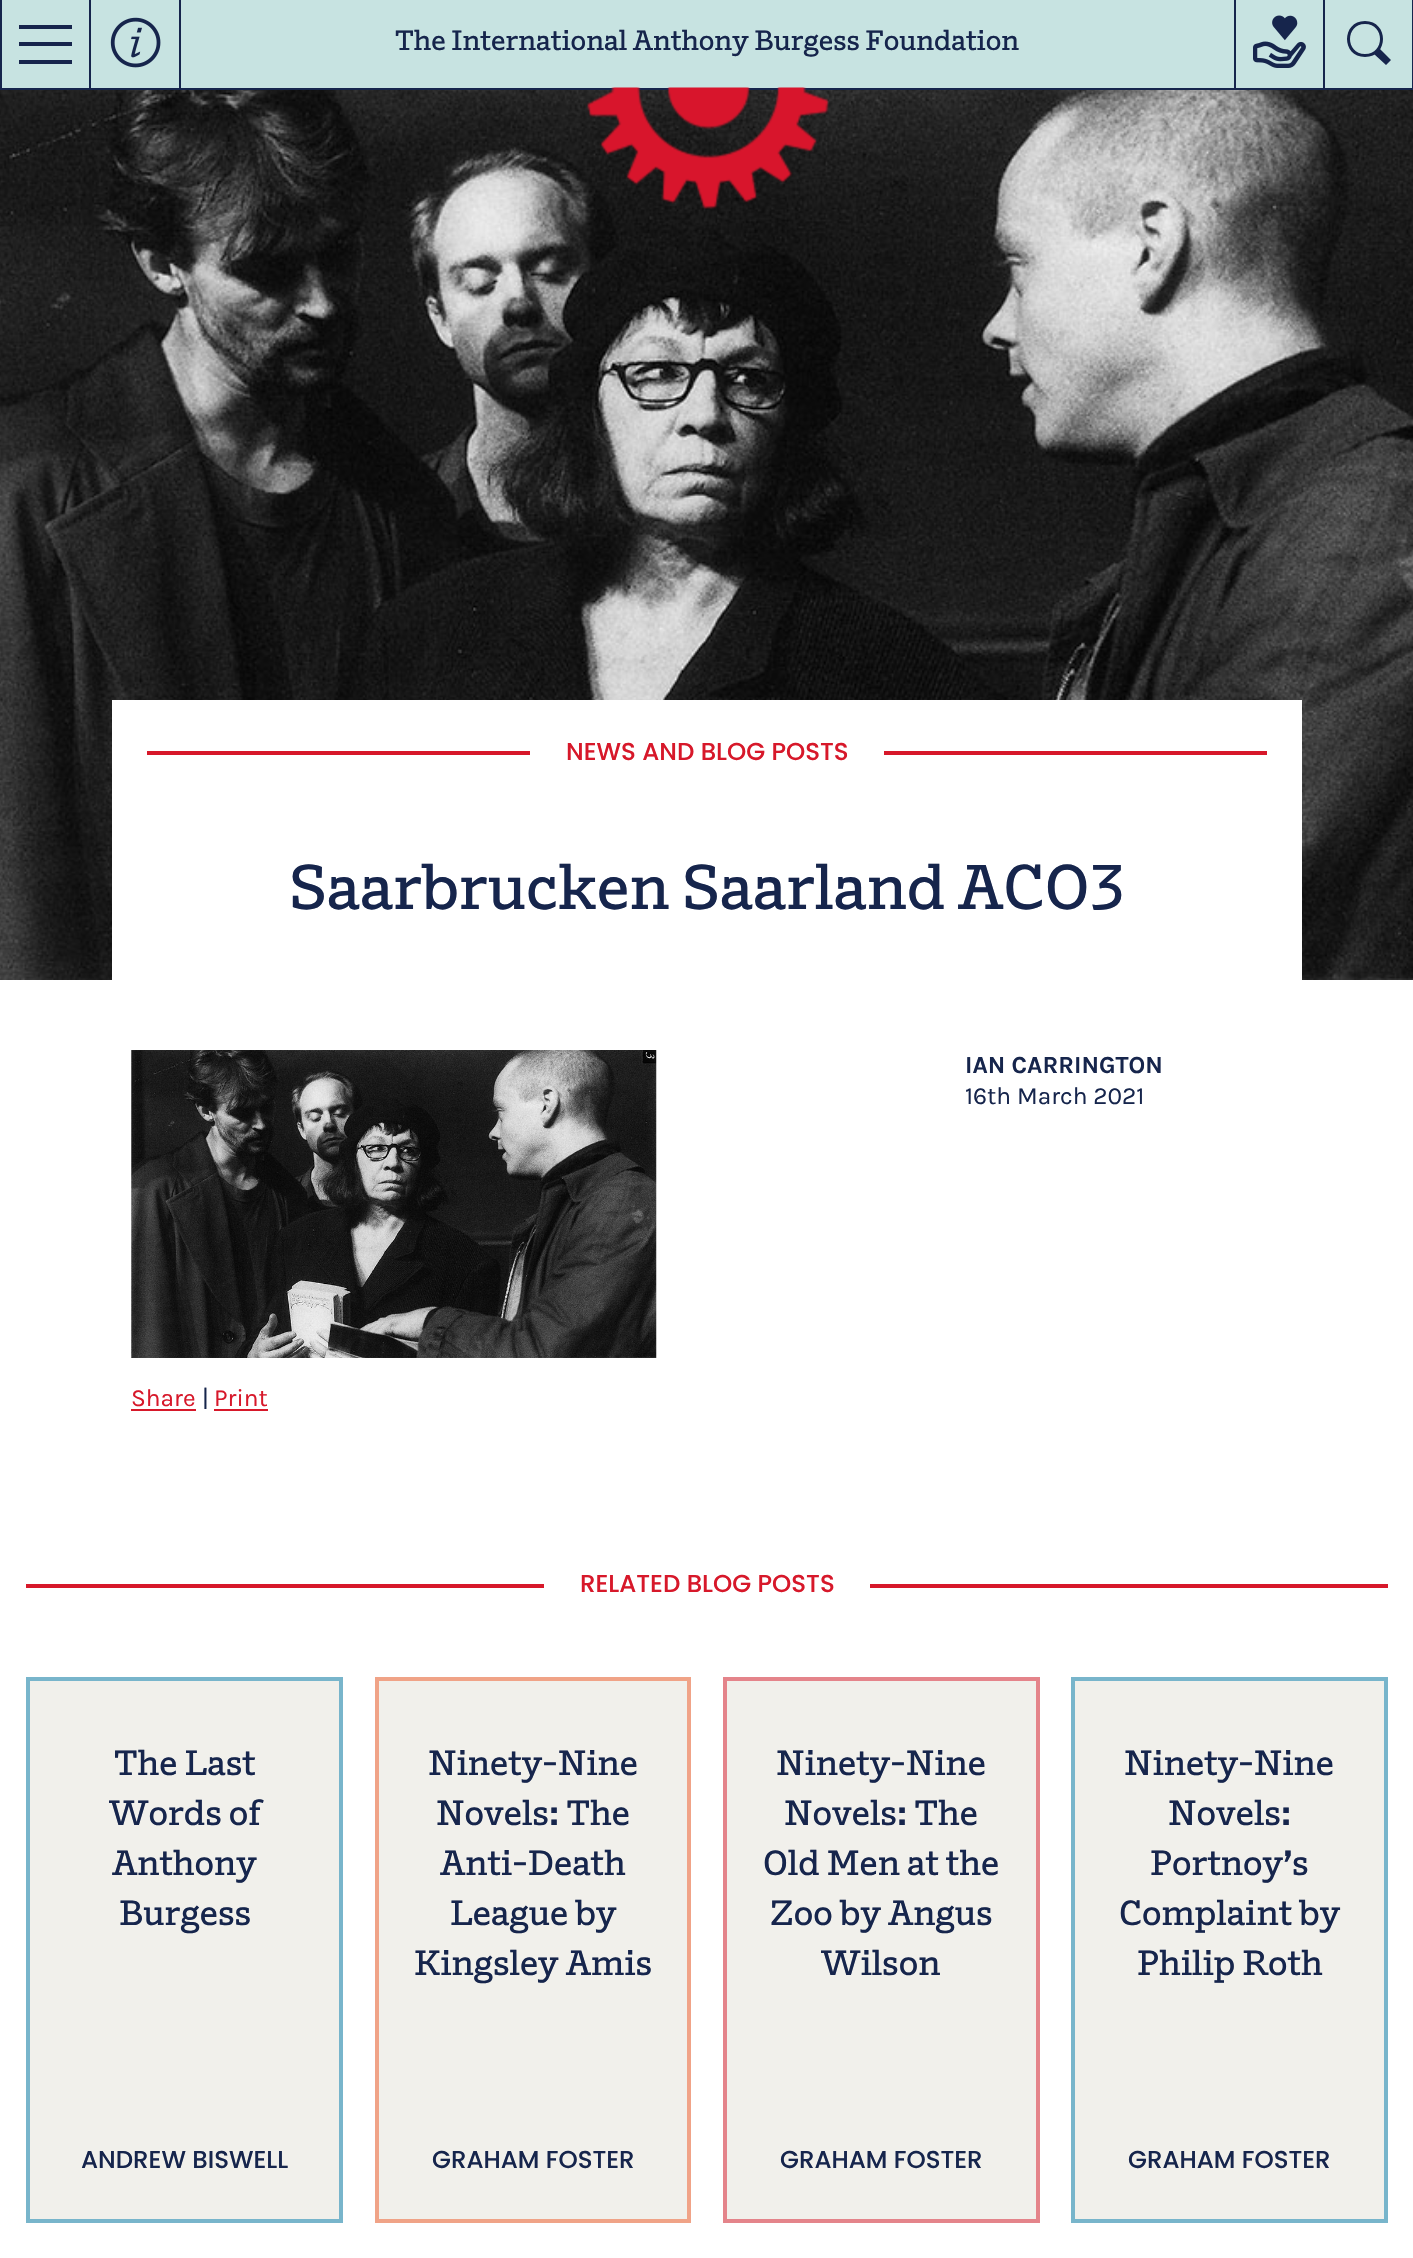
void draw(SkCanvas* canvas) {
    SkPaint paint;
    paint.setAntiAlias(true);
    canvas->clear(0xFFFFFFFF);
    paint.setColor(0xFFC7E3E1);
    canvas->drawRect(SkRect::MakeXYWH(2, 0, 1410, 88), paint);
    paint.setColor(0xFF16254C);
    canvas->drawRect(SkRect::MakeXYWH(0, 88, 1413, 2), paint);
    canvas->drawRect(SkRect::MakeXYWH(89, 0, 2, 88), paint);
    canvas->drawRect(SkRect::MakeXYWH(0, 0, 2, 88), paint);
    canvas->drawRect(SkRect::MakeXYWH(19, 25, 53, 4), paint);
    canvas->drawRect(SkRect::MakeXYWH(19, 42, 53, 4), paint);
    canvas->drawRect(SkRect::MakeXYWH(19, 60, 53, 4), paint);
    canvas->drawRect(SkRect::MakeXYWH(179, 0, 2, 88), paint);
    canvas->drawImageRect(SkImages::DeferredFromEncodedData(SkData::MakeFromFileName("img1.png")), SkRect::MakeXYWH(110, 17, 51, 51), SkSamplingOptions());
    canvas->drawRect(SkRect::MakeXYWH(1234, 0, 2, 88), paint);
    SkFont font1(fontMgr->matchFamilyStyle("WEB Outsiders", SkFontStyle(600, SkFontStyle::kNormal_Width, SkFontStyle::kUpright_Slant)), 28);
    font1.setSubpixel(true);
    canvas->drawString("The International Anthony Burgess Foundation", 395, 50, font1, paint);
    canvas->drawRect(SkRect::MakeXYWH(1323, 0, 2, 88), paint);
    canvas->drawImageRect(SkImages::DeferredFromEncodedData(SkData::MakeFromFileName("img2.png")), SkRect::MakeXYWH(1253, 15, 53, 53), SkSamplingOptions());
    canvas->drawRect(SkRect::MakeXYWH(1412, 0, 1, 88), paint);
    canvas->drawPath(SkPathBuilder().moveTo(1365, 57).cubicTo(1341, 57, 1341, 21, 1365, 21).cubicTo(1389, 21, 1389, 57, 1365, 57).close().moveTo(1365, 24).cubicTo(1345, 24, 1345, 54, 1365, 54).cubicTo(1385, 54, 1385, 24, 1365, 24).close().moveTo(1380, 49).lineTo(1391, 60).lineTo(1386, 65).lineTo(1374, 54).close().detach(), paint);
    canvas->drawImageRect(SkImages::DeferredFromEncodedData(SkData::MakeFromFileName("img4.png")), SkRect::MakeXYWH(0, 90, 1413, 890), SkSamplingOptions());
    canvas->drawImageRect(SkImages::DeferredFromEncodedData(SkData::MakeFromFileName("img3.png")), SkRect::MakeXYWH(587, 87, 242, 122), SkSamplingOptions());
    paint.setColor(0xFFFFFFFF);
    canvas->drawRect(SkRect::MakeXYWH(112, 700, 1190, 280), paint);
    paint.setColor(0xFFD7182A);
    canvas->drawRect(SkRect::MakeXYWH(147, 751, 383, 4), paint);
    SkFont font2(fontMgr->matchFamilyStyle("Poppins", SkFontStyle(500, SkFontStyle::kNormal_Width, SkFontStyle::kUpright_Slant)), 24.5f);
    font2.setSubpixel(true);
    canvas->drawString("NEWS AND BLOG POSTS", 566, 760, font2, paint);
    canvas->drawRect(SkRect::MakeXYWH(884, 751, 383, 4), paint);
    SkFont font3(fontMgr->matchFamilyStyle("WEB Outsiders", SkFontStyle(600, SkFontStyle::kNormal_Width, SkFontStyle::kUpright_Slant)), 63);
    font3.setSubpixel(true);
    paint.setColor(0xFF16254C);
    canvas->drawString("Saarbrucken Saarland ACO3", 289, 909, font3, paint);
    SkFont font4(fontMgr->matchFamilyStyle("Karla", SkFontStyle::Bold()), 24.5f);
    font4.setSubpixel(true);
    canvas->drawString("IAN CARRINGTON", 965, 1073, font4, paint);
    SkFont font5(fontMgr->matchFamilyStyle("Karla", SkFontStyle::Normal()), 24.5f);
    font5.setSubpixel(true);
    canvas->drawString("16th March 2021", 965, 1104, font5, paint);
    canvas->drawImageRect(SkImages::DeferredFromEncodedData(SkData::MakeFromFileName("img5.png")), SkRect::MakeXYWH(131, 1050, 526, 308), SkSamplingOptions());
    paint.setColor(0xFFD7182A);
    canvas->drawString("Share", 131, 1406, font5, paint);
    canvas->drawRect(SkRect::MakeXYWH(131, 1409, 65, 2), paint);
    paint.setColor(0xFF16254C);
    canvas->drawString("|", 202, 1406, font5, paint);
    paint.setColor(0xFFD7182A);
    canvas->drawString("Print", 214, 1406, font5, paint);
    canvas->drawRect(SkRect::MakeXYWH(214, 1409, 54, 2), paint);
    canvas->drawRect(SkRect::MakeXYWH(26, 1584, 518, 4), paint);
    canvas->drawString("RELATED BLOG POSTS", 580, 1592, font2, paint);
    canvas->drawRect(SkRect::MakeXYWH(870, 1584, 518, 4), paint);
    paint.setColor(0xFFF1F0EB);
    canvas->drawRect(SkRect::MakeXYWH(28, 1679, 313, 542), paint);
    paint.setStyle(SkPaint::kStroke_Style);
    paint.setStrokeWidth(4);
    paint.setColor(0xFF78B5CB);
    canvas->drawRect(SkRect::MakeXYWH(28, 1679, 313, 542), paint);
    SkFont font6(fontMgr->matchFamilyStyle("WEB Outsiders", SkFontStyle(600, SkFontStyle::kNormal_Width, SkFontStyle::kUpright_Slant)), 35);
    font6.setSubpixel(true);
    paint.setStyle(SkPaint::kFill_Style);
    paint.setColor(0xFF16254C);
    canvas->drawString("The Last", 114, 1775, font6, paint);
    canvas->drawString("Words of", 109, 1825, font6, paint);
    canvas->drawString("Anthony", 112, 1875, font6, paint);
    canvas->drawString("Burgess", 119, 1925, font6, paint);
    canvas->drawString("ANDREW BISWELL", 81, 2168, font2, paint);
    paint.setColor(0xFFF1F0EB);
    canvas->drawRect(SkRect::MakeXYWH(377, 1679, 312, 542), paint);
    paint.setStyle(SkPaint::kStroke_Style);
    paint.setColor(0xFFF0A387);
    canvas->drawRect(SkRect::MakeXYWH(377, 1679, 312, 542), paint);
    paint.setStyle(SkPaint::kFill_Style);
    paint.setColor(0xFF16254C);
    canvas->drawString("Ninety-Nine", 428, 1775, font6, paint);
    canvas->drawString("Novels: The", 436, 1825, font6, paint);
    canvas->drawString("Anti-Death", 440, 1875, font6, paint);
    canvas->drawString("League by", 450, 1925, font6, paint);
    canvas->drawString("Kingsley Amis", 414, 1975, font6, paint);
    canvas->drawString("GRAHAM FOSTER", 432, 2168, font2, paint);
    paint.setColor(0xFFF1F0EB);
    canvas->drawRect(SkRect::MakeXYWH(725, 1679, 313, 542), paint);
    paint.setStyle(SkPaint::kStroke_Style);
    paint.setColor(0xFFE4848A);
    canvas->drawRect(SkRect::MakeXYWH(725, 1679, 313, 542), paint);
    paint.setStyle(SkPaint::kFill_Style);
    paint.setColor(0xFF16254C);
    canvas->drawString("Ninety-Nine", 776, 1775, font6, paint);
    canvas->drawString("Novels: The", 784, 1825, font6, paint);
    canvas->drawString("Old Men at the", 763, 1875, font6, paint);
    canvas->drawString("Zoo by Angus", 770, 1925, font6, paint);
    canvas->drawString("Wilson", 821, 1975, font6, paint);
    canvas->drawString("GRAHAM FOSTER", 780, 2168, font2, paint);
    paint.setColor(0xFFF1F0EB);
    canvas->drawRect(SkRect::MakeXYWH(1073, 1679, 313, 542), paint);
    paint.setStyle(SkPaint::kStroke_Style);
    paint.setColor(0xFF78B5CB);
    canvas->drawRect(SkRect::MakeXYWH(1073, 1679, 313, 542), paint);
    paint.setStyle(SkPaint::kFill_Style);
    paint.setColor(0xFF16254C);
    canvas->drawString("Ninety-Nine", 1124, 1775, font6, paint);
    canvas->drawString("Novels:", 1168, 1825, font6, paint);
    canvas->drawString("Portnoy’s", 1150, 1875, font6, paint);
    canvas->drawString("Complaint by", 1119, 1925, font6, paint);
    canvas->drawString("Philip Roth", 1137, 1975, font6, paint);
    canvas->drawString("GRAHAM FOSTER", 1128, 2168, font2, paint);
}
